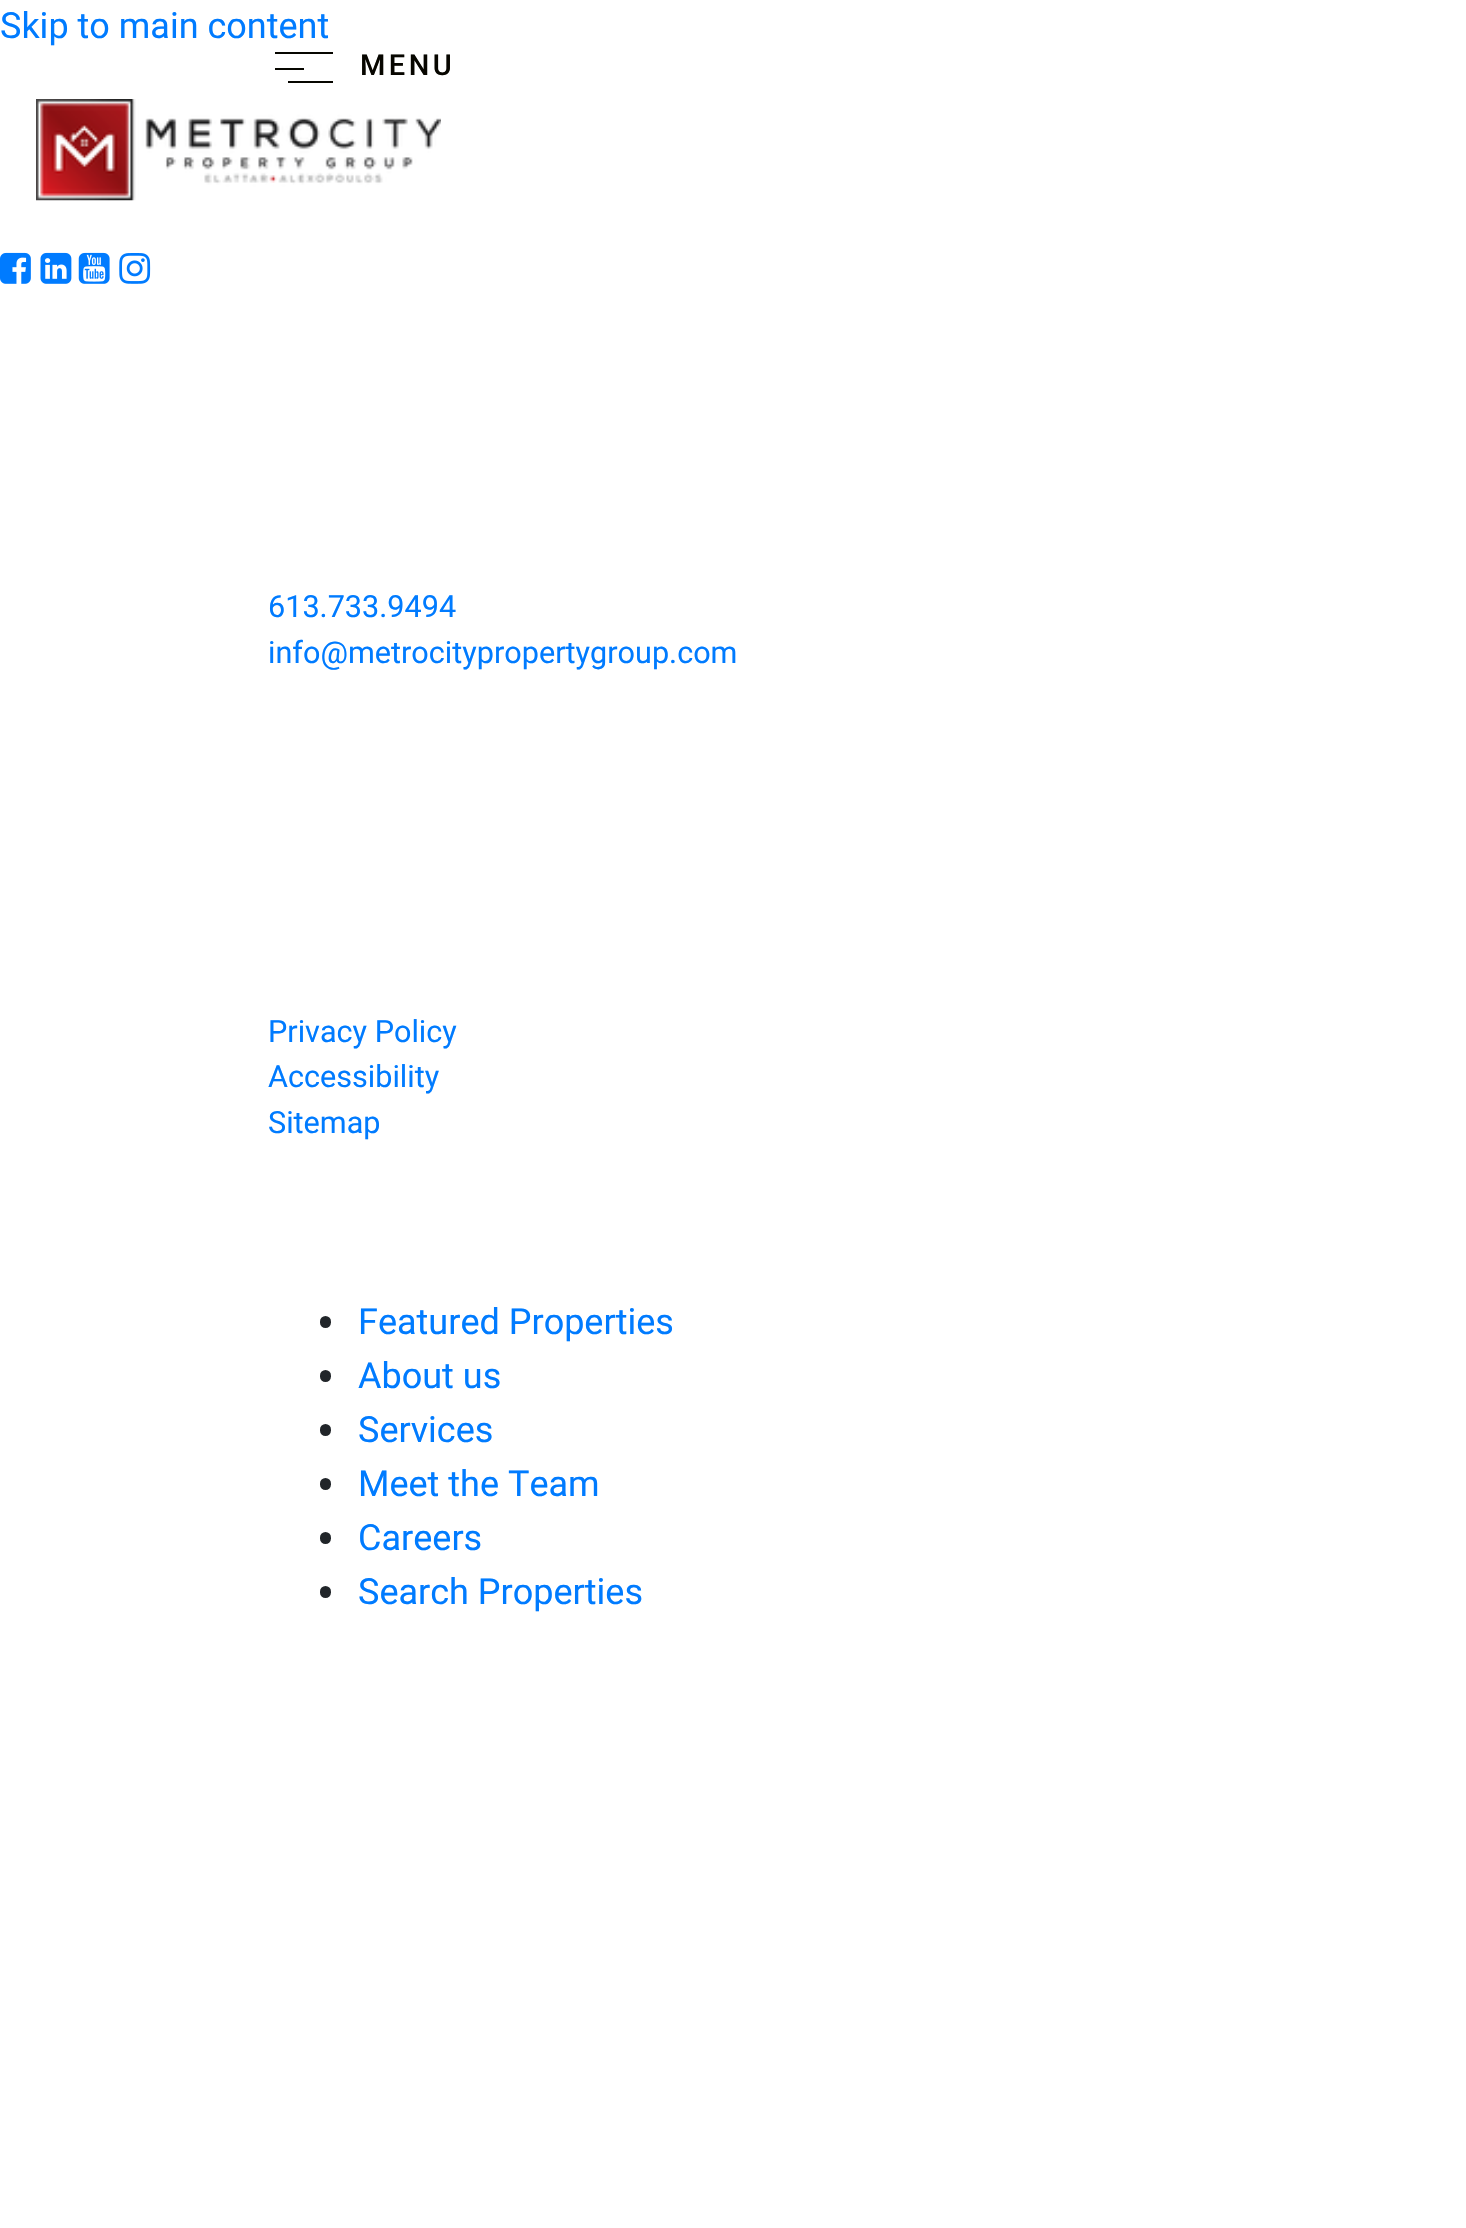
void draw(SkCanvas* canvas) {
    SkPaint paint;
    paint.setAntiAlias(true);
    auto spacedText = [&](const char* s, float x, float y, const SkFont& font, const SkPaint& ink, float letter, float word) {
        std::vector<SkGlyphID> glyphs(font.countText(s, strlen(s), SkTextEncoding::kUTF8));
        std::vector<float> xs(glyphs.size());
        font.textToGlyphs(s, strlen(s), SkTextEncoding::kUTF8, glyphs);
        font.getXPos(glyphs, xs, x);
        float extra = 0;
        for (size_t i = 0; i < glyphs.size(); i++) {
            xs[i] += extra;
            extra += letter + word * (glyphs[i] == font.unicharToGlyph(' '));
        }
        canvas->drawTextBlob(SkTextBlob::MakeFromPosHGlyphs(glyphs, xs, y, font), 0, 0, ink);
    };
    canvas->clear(0xFFFFFFFF);
    SkFont font1(fontMgr->matchFamilyStyle("Roboto", SkFontStyle::Normal()), 36);
    font1.setSubpixel(true);
    paint.setColor(0xFF007BFF);
    canvas->drawString("Skip to main content", 0, 38, font1, paint);
    paint.setColor(0xFF070600);
    canvas->drawRect(SkRect::MakeXYWH(275, 52, 58, 2), paint);
    canvas->drawRect(SkRect::MakeXYWH(275, 68, 29, 2), paint);
    canvas->drawRect(SkRect::MakeXYWH(288, 81, 45, 2), paint);
    SkFont font2(fontMgr->matchFamilyStyle("Roboto", SkFontStyle(500, SkFontStyle::kNormal_Width, SkFontStyle::kUpright_Slant)), 29);
    font2.setSubpixel(true);
    spacedText("MENU", 360, 75, font2, paint, 3.5f, 0);
    canvas->drawImageRect(SkImages::DeferredFromEncodedData(SkData::MakeFromFileName("img1.png")), SkRect::MakeXYWH(36, 99, 405, 102), SkSamplingOptions());
    canvas->drawImageRect(SkImages::DeferredFromEncodedData(SkData::MakeFromFileName("img2.png")), SkRect::MakeXYWH(0, 252, 31, 32), SkSamplingOptions());
    canvas->drawImageRect(SkImages::DeferredFromEncodedData(SkData::MakeFromFileName("img3.png")), SkRect::MakeXYWH(40, 252, 32, 32), SkSamplingOptions());
    canvas->drawImageRect(SkImages::DeferredFromEncodedData(SkData::MakeFromFileName("img4.png")), SkRect::MakeXYWH(78, 252, 32, 32), SkSamplingOptions());
    canvas->drawImageRect(SkImages::DeferredFromEncodedData(SkData::MakeFromFileName("img5.png")), SkRect::MakeXYWH(119, 253, 32, 31), SkSamplingOptions());
    SkFont font3(fontMgr->matchFamilyStyle("Roboto", SkFontStyle::Normal()), 30.6f);
    font3.setSubpixel(true);
    paint.setColor(0xFF007BFF);
    canvas->drawString("613.733.9494", 268, 617, font3, paint);
    canvas->drawString("info@metrocitypropertygroup.com", 268, 663, font3, paint);
    canvas->drawString("Privacy Policy", 268, 1042, font3, paint);
    canvas->drawString("Accessibility", 268, 1087, font3, paint);
    canvas->drawString("Sitemap", 268, 1133, font3, paint);
    paint.setColor(0xFF212529);
    canvas->drawRoundRect(SkRect::MakeXYWH(320, 1316, 11, 12), 5.5f, 5.5f, paint);
    paint.setColor(0xFF007BFF);
    canvas->drawString("Featured Properties", 358, 1334, font1, paint);
    paint.setColor(0xFF212529);
    canvas->drawRoundRect(SkRect::MakeXYWH(320, 1370, 11, 12), 5.5f, 5.5f, paint);
    paint.setColor(0xFF007BFF);
    canvas->drawString("About us", 358, 1388, font1, paint);
    paint.setColor(0xFF212529);
    canvas->drawRoundRect(SkRect::MakeXYWH(320, 1424, 11, 12), 5.5f, 5.5f, paint);
    paint.setColor(0xFF007BFF);
    canvas->drawString("Services", 358, 1442, font1, paint);
    paint.setColor(0xFF212529);
    canvas->drawRoundRect(SkRect::MakeXYWH(320, 1478, 11, 12), 5.5f, 5.5f, paint);
    paint.setColor(0xFF007BFF);
    canvas->drawString("Meet the Team", 358, 1496, font1, paint);
    paint.setColor(0xFF212529);
    canvas->drawRoundRect(SkRect::MakeXYWH(320, 1532, 11, 12), 5.5f, 5.5f, paint);
    paint.setColor(0xFF007BFF);
    canvas->drawString("Careers", 358, 1550, font1, paint);
    paint.setColor(0xFF212529);
    canvas->drawRoundRect(SkRect::MakeXYWH(320, 1586, 11, 12), 5.5f, 5.5f, paint);
    paint.setColor(0xFF007BFF);
    canvas->drawString("Search Properties", 358, 1604, font1, paint);
}
